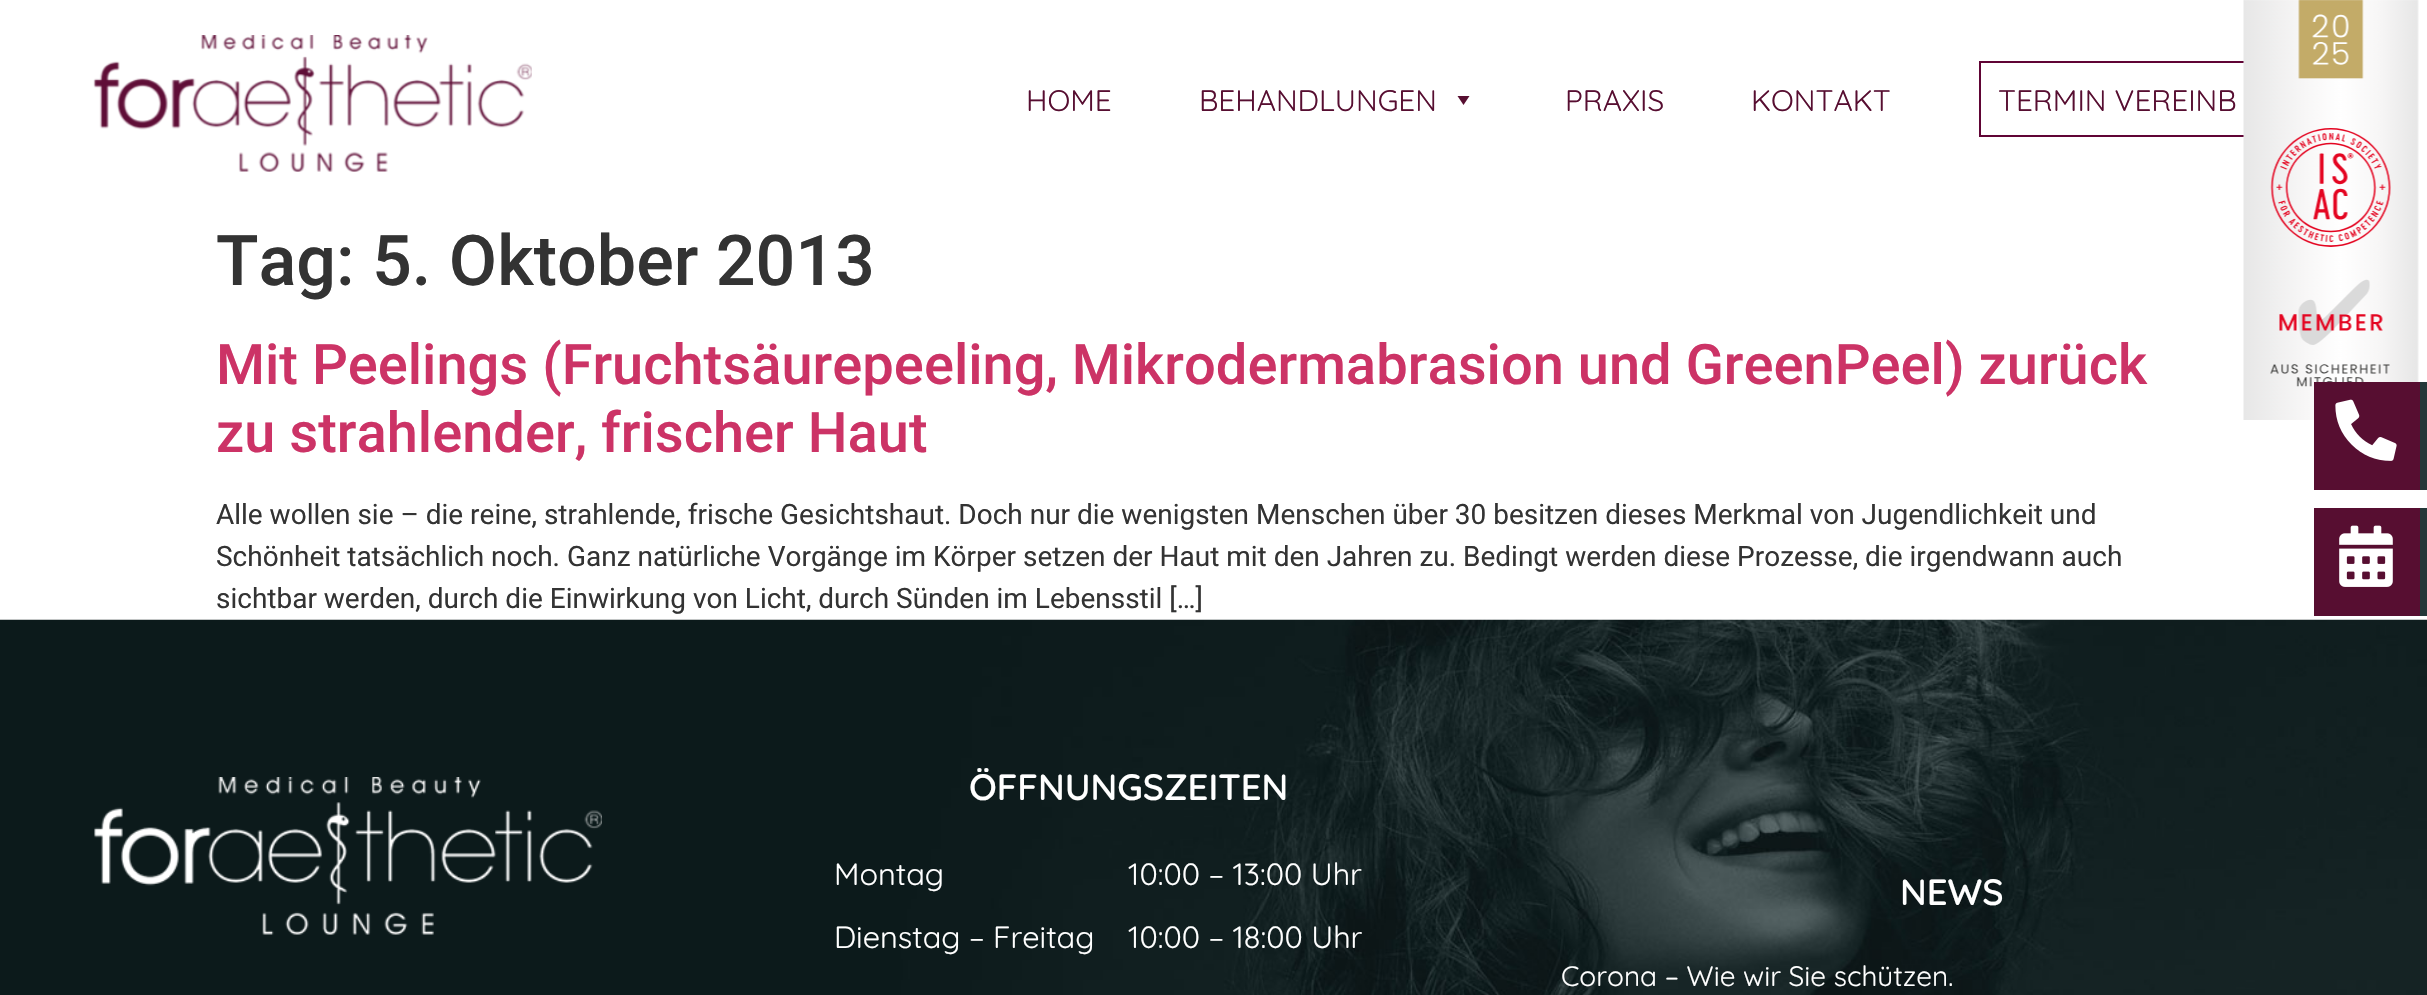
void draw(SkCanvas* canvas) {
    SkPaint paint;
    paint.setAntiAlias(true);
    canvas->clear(0xFFFFFFFF);
    canvas->drawImageRect(SkImages::DeferredFromEncodedData(SkData::MakeFromFileName("img1.png")), SkRect::MakeXYWH(93, 35, 439, 137), SkSamplingOptions());
    SkFont font1(fontMgr->matchFamilyStyle("Quicksand", SkFontStyle(300, SkFontStyle::kNormal_Width, SkFontStyle::kUpright_Slant)), 29.75f);
    font1.setSubpixel(true);
    paint.setColor(0xFF570E31);
    canvas->drawString("HOME", 1026, 111, font1, paint);
    canvas->drawString("BEHANDLUNGEN", 1199, 111, font1, paint);
    canvas->drawPath(SkPathBuilder().moveTo(1469.5f, 96).lineTo(1463.5f, 105).lineTo(1457.5f, 96).close().detach(), paint);
    canvas->drawString("PRAXIS", 1565, 111, font1, paint);
    canvas->drawString("KONTAKT", 1751, 111, font1, paint);
    paint.setStyle(SkPaint::kStroke_Style);
    paint.setStrokeWidth(2);
    paint.setColor(0xFF600435);
    canvas->drawRect(SkRect::MakeXYWH(1980, 62, 354, 74), paint);
    paint.setStyle(SkPaint::kFill_Style);
    paint.setColor(0xFF570E31);
    canvas->drawString("TERMIN VEREINB", 1998, 111, font1, paint);
    canvas->drawImageRect(SkImages::DeferredFromEncodedData(SkData::MakeFromFileName("img2.png")), SkRect::MakeXYWH(2243, 0, 176, 420), SkSamplingOptions());
    SkFont font2(fontMgr->matchFamilyStyle("Roboto", SkFontStyle(500, SkFontStyle::kNormal_Width, SkFontStyle::kUpright_Slant)), 70);
    font2.setSubpixel(true);
    paint.setColor(0xFF333333);
    canvas->drawString("Tag: 5. Oktober 2013", 216, 285, font2, paint);
    SkFont font3(fontMgr->matchFamilyStyle("Roboto", SkFontStyle(500, SkFontStyle::kNormal_Width, SkFontStyle::kUpright_Slant)), 56);
    font3.setSubpixel(true);
    paint.setColor(0xFFCC3366);
    canvas->drawString("Mit Peelings (Fruchtsäurepeeling, Mikrodermabrasion und GreenPeel) zurück", 216, 384, font3, paint);
    canvas->drawString("zu strahlender, frischer Haut", 216, 452, font3, paint);
    SkFont font4(fontMgr->matchFamilyStyle("Roboto", SkFontStyle::Normal()), 28);
    font4.setSubpixel(true);
    paint.setColor(0xFF333333);
    canvas->drawString("Alle wollen sie – die reine, strahlende, frische Gesichtshaut. Doch nur die wenigsten Menschen über 30 besitzen dieses Merkmal von Jugendlichkeit und", 216, 524, font4, paint);
    canvas->drawString("Schönheit tatsächlich noch. Ganz natürliche Vorgänge im Körper setzen der Haut mit den Jahren zu. Bedingt werden diese Prozesse, die irgendwann auch", 216, 566, font4, paint);
    canvas->drawString("sichtbar werden, durch die Einwirkung von Licht, durch Sünden im Lebensstil […]", 216, 608, font4, paint);
    paint.setColor(0xFF570E31);
    canvas->drawRect(SkRect::MakeXYWH(2314, 382, 106, 108), paint);
    canvas->drawImageRect(SkImages::DeferredFromEncodedData(SkData::MakeFromFileName("img3.png")), SkRect::MakeXYWH(2335, 399, 62, 62), SkSamplingOptions());
    paint.setColor(0xFF233738);
    canvas->drawRect(SkRect::MakeXYWH(2420, 382, 7, 108), paint);
    paint.setColor(0xFF570E31);
    canvas->drawRect(SkRect::MakeXYWH(2314, 508, 106, 108), paint);
    canvas->drawImageRect(SkImages::DeferredFromEncodedData(SkData::MakeFromFileName("img4.png")), SkRect::MakeXYWH(2339, 525, 54, 62), SkSamplingOptions());
    paint.setColor(0xFF233738);
    canvas->drawRect(SkRect::MakeXYWH(2420, 508, 7, 108), paint);
    canvas->drawImageRect(SkImages::DeferredFromEncodedData(SkData::MakeFromFileName("img5.png")), SkRect::MakeXYWH(0, 619, 2427, 376), SkSamplingOptions());
    canvas->drawImageRect(SkImages::DeferredFromEncodedData(SkData::MakeFromFileName("img6.png")), SkRect::MakeXYWH(94, 777, 508, 158), SkSamplingOptions());
    SkFont font5(fontMgr->matchFamilyStyle("Quicksand", SkFontStyle(600, SkFontStyle::kNormal_Width, SkFontStyle::kUpright_Slant)), 36.5f);
    font5.setSubpixel(true);
    paint.setColor(0xFFFFFFFF);
    canvas->drawString("ÖFFNUNGSZEITEN", 969, 800, font5, paint);
    SkFont font6(fontMgr->matchFamilyStyle("Quicksand", SkFontStyle(300, SkFontStyle::kNormal_Width, SkFontStyle::kUpright_Slant)), 30.75f);
    font6.setSubpixel(true);
    canvas->drawString("Montag", 834, 885, font6, paint);
    canvas->drawString("10:00 – 13:00 Uhr", 1128, 885, font6, paint);
    canvas->drawString("Dienstag – Freitag", 834, 948, font6, paint);
    canvas->drawString("10:00 – 18:00 Uhr", 1128, 948, font6, paint);
    canvas->drawString("NEWS", 1900, 905, font5, paint);
    SkFont font7(fontMgr->matchFamilyStyle("Quicksand", SkFontStyle(300, SkFontStyle::kNormal_Width, SkFontStyle::kUpright_Slant)), 28);
    font7.setSubpixel(true);
    canvas->drawString("Corona – Wie wir Sie schützen.", 1561, 986, font7, paint);
}
